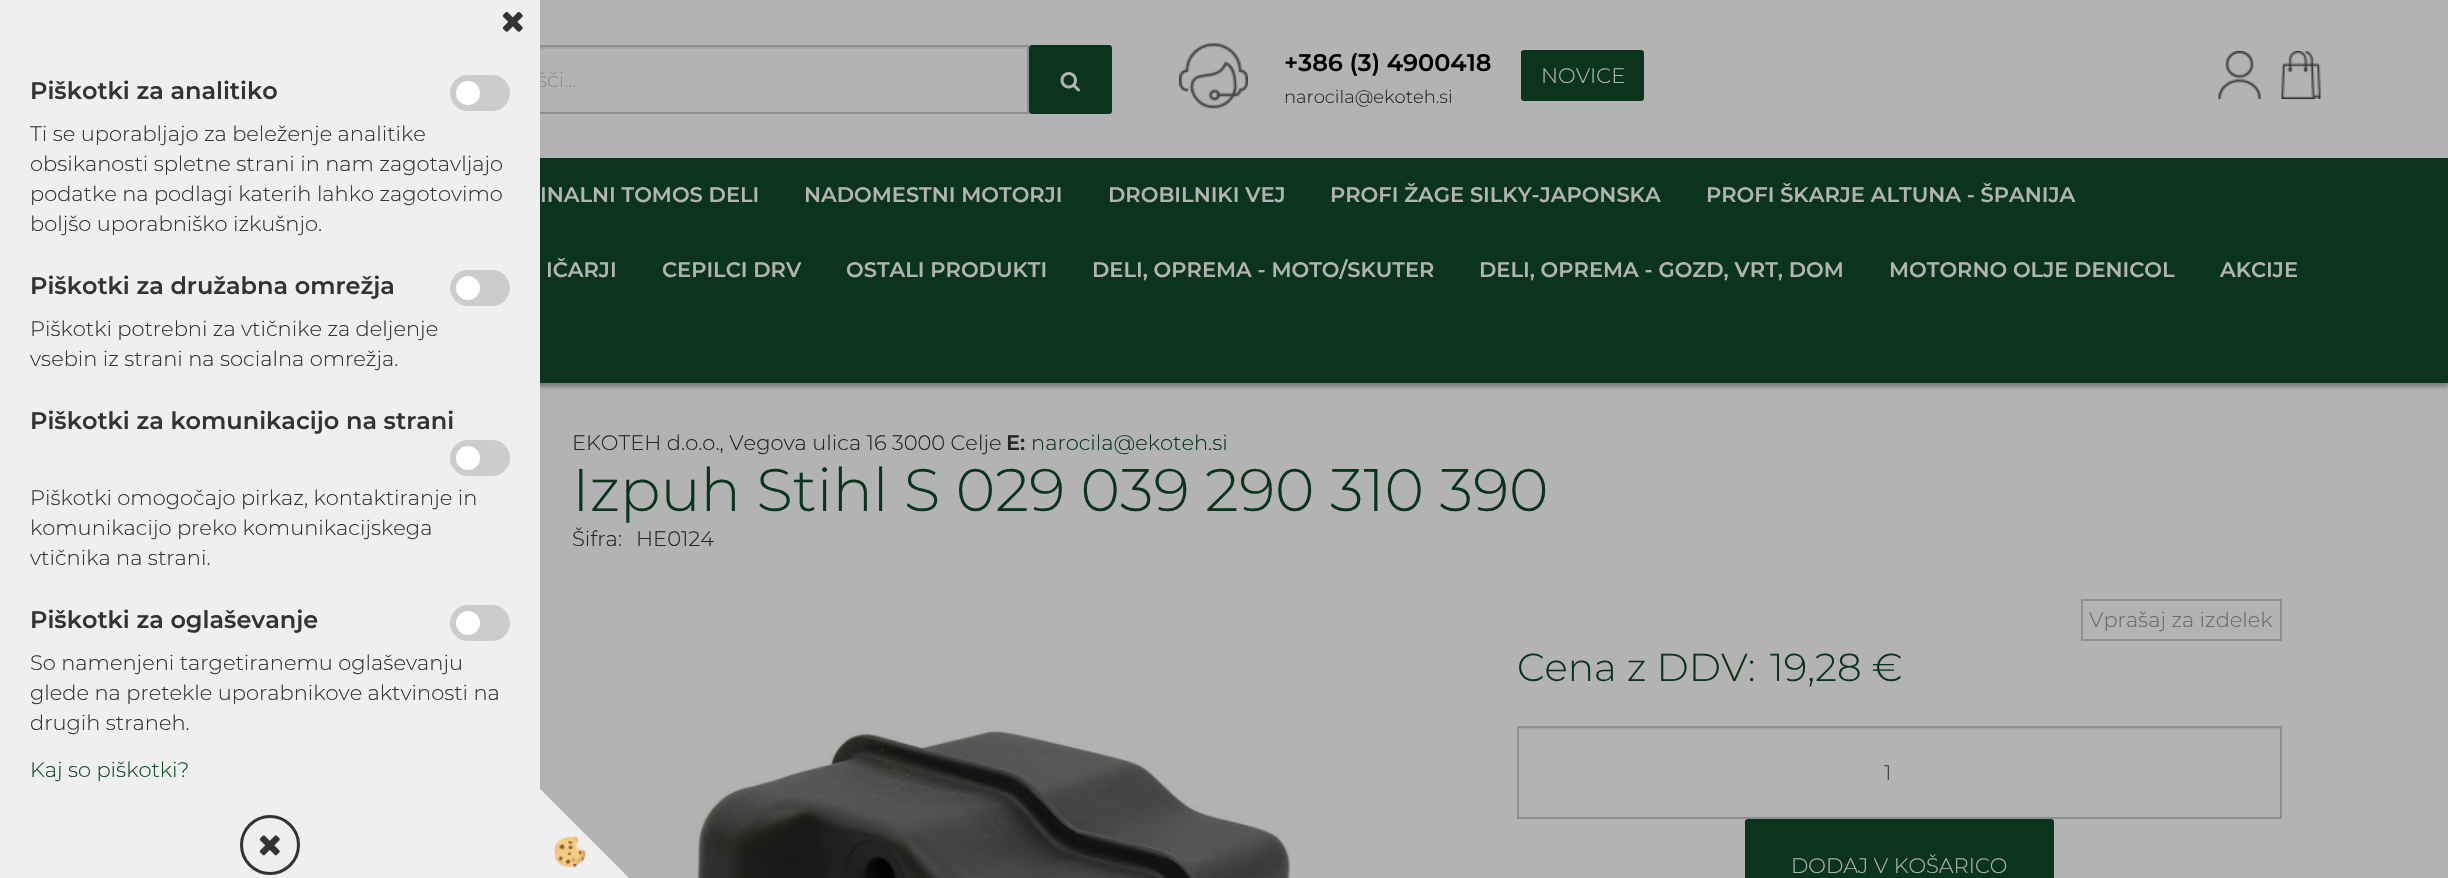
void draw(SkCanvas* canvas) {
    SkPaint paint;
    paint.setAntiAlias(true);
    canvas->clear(0xFFB3B3B3);
    paint.setColor(0xFFA5A5A5);
    canvas->drawRect(SkRect::MakeXYWH(540, 47, 488, 2), paint);
    paint.setStyle(SkPaint::kStroke_Style);
    paint.setStrokeWidth(2);
    paint.setColor(0xFF8F8F8F);
    canvas->drawRect(SkRect::MakeXYWH(513, 46, 515, 67), paint);
    SkFont font1(fontMgr->matchFamilyStyle("Montserrat", SkFontStyle(300, SkFontStyle::kNormal_Width, SkFontStyle::kUpright_Slant)), 21);
    font1.setSubpixel(true);
    paint.setStyle(SkPaint::kFill_Style);
    canvas->drawString("šči...", 537, 87, font1, paint);
    paint.setColor(0x4D000000);
    paint.setMaskFilter(SkMaskFilter::MakeBlur(kNormal_SkBlurStyle, 2));
    canvas->drawRect(SkRect::MakeXYWH(0, 162, 2448, 225), paint);
    paint.setMaskFilter(nullptr);
    paint.setColor(0xFFEFEFEF);
    canvas->drawRect(SkRect::MakeXYWH(0, 0, 540, 878), paint);
    canvas->drawImageRect(SkImages::DeferredFromEncodedData(SkData::MakeFromFileName("img1.png")), SkRect::MakeXYWH(502, 11, 21, 21), SkSamplingOptions());
    SkFont font2(fontMgr->matchFamilyStyle("Montserrat", SkFontStyle(600, SkFontStyle::kNormal_Width, SkFontStyle::kUpright_Slant)), 24);
    font2.setSubpixel(true);
    paint.setColor(0xFF333333);
    canvas->drawString("Piškotki za analitiko", 30, 99, font2, paint);
    paint.setColor(0xFFCCCCCC);
    canvas->drawRoundRect(SkRect::MakeXYWH(450, 75, 60, 36), 18, 18, paint);
    paint.setColor(0xFFFFFFFF);
    canvas->drawCircle(468, 93, 12, paint);
    paint.setColor(0xFF333333);
    canvas->drawString("Ti se uporabljajo za beleženje analitike", 30, 141, font1, paint);
    canvas->drawString("obsikanosti spletne strani in nam zagotavljajo", 30, 171, font1, paint);
    canvas->drawString("podatke na podlagi katerih lahko zagotovimo", 30, 201, font1, paint);
    canvas->drawString("boljšo uporabniško izkušnjo.", 30, 231, font1, paint);
    canvas->drawString("Piškotki za družabna omrežja", 30, 294, font2, paint);
    paint.setColor(0xFFCCCCCC);
    canvas->drawRoundRect(SkRect::MakeXYWH(450, 270, 60, 36), 18, 18, paint);
    paint.setColor(0xFFFFFFFF);
    canvas->drawCircle(468, 288, 12, paint);
    paint.setColor(0xFF333333);
    canvas->drawString("Piškotki potrebni za vtičnike za deljenje", 30, 336, font1, paint);
    canvas->drawString("vsebin iz strani na socialna omrežja.", 30, 366, font1, paint);
    canvas->drawString("Piškotki za komunikacijo na strani", 30, 429, font2, paint);
    paint.setColor(0xFFCCCCCC);
    canvas->drawRoundRect(SkRect::MakeXYWH(450, 440, 60, 36), 18, 18, paint);
    paint.setColor(0xFFFFFFFF);
    canvas->drawCircle(468, 458, 12, paint);
    paint.setColor(0xFF333333);
    canvas->drawString("Piškotki omogočajo pirkaz, kontaktiranje in", 30, 505, font1, paint);
    canvas->drawString("komunikacijo preko komunikacijskega", 30, 535, font1, paint);
    canvas->drawString("vtičnika na strani.", 30, 565, font1, paint);
    canvas->drawString("Piškotki za oglaševanje", 30, 628, font2, paint);
    paint.setColor(0xFFCCCCCC);
    canvas->drawRoundRect(SkRect::MakeXYWH(450, 605, 60, 36), 18, 18, paint);
    paint.setColor(0xFFFFFFFF);
    canvas->drawCircle(468, 623, 12, paint);
    paint.setColor(0xFF333333);
    canvas->drawString("So namenjeni targetiranemu oglaševanju", 30, 670, font1, paint);
    canvas->drawString("glede na pretekle uporabnikove aktvinosti na", 30, 700, font1, paint);
    canvas->drawString("drugih straneh.", 30, 730, font1, paint);
    paint.setColor(0xFF0E4C28);
    canvas->drawString("Kaj so piškotki?", 30, 777, font1, paint);
    paint.setStyle(SkPaint::kStroke_Style);
    paint.setStrokeWidth(3);
    paint.setColor(0xFF333333);
    canvas->drawCircle(270, 845, 28.5f, paint);
    canvas->drawImageRect(SkImages::DeferredFromEncodedData(SkData::MakeFromFileName("img2.png")), SkRect::MakeXYWH(259, 835, 21, 21), SkSamplingOptions());
    paint.setStyle(SkPaint::kFill_Style);
    paint.setColor(0xFFEFEFEF);
    canvas->drawPath(SkPathBuilder().moveTo(630, 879).lineTo(540, 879).lineTo(540, 789).close().detach(), paint);
    canvas->drawImageRect(SkImages::DeferredFromEncodedData(SkData::MakeFromFileName("img3.png")), SkRect::MakeXYWH(554, 836, 32, 32), SkSamplingOptions());
    paint.setColor(0xFF0A351C);
    canvas->drawRoundRect(SkRect::MakeXYWH(1030, 46, 81, 67), 2, 2, paint);
    paint.setStyle(SkPaint::kStroke_Style);
    paint.setStrokeWidth(2);
    canvas->drawRoundRect(SkRect::MakeXYWH(1030, 46, 81, 67), 2, 2, paint);
    canvas->drawImageRect(SkImages::DeferredFromEncodedData(SkData::MakeFromFileName("img4.png")), SkRect::MakeXYWH(1060, 72, 20, 20), SkSamplingOptions());
    canvas->drawImageRect(SkImages::DeferredFromEncodedData(SkData::MakeFromFileName("img5.png")), SkRect::MakeXYWH(1179, 43, 69, 66), SkSamplingOptions());
    paint.setStyle(SkPaint::kFill_Style);
    paint.setColor(0xFF000000);
    canvas->drawString("+386 (3) 4900418", 1284, 71, font2, paint);
    SkFont font3(fontMgr->matchFamilyStyle("Montserrat", SkFontStyle(300, SkFontStyle::kNormal_Width, SkFontStyle::kUpright_Slant)), 18);
    font3.setSubpixel(true);
    paint.setColor(0xFF242424);
    canvas->drawString("narocila@ekoteh.si", 1284, 103, font3, paint);
    paint.setColor(0xFF0A351C);
    canvas->drawRoundRect(SkRect::MakeXYWH(1522, 51, 121, 49), 2, 2, paint);
    paint.setStyle(SkPaint::kStroke_Style);
    canvas->drawRoundRect(SkRect::MakeXYWH(1522, 51, 121, 49), 2, 2, paint);
    paint.setStyle(SkPaint::kFill_Style);
    paint.setColor(0xFFB3B3B3);
    canvas->drawString("NOVICE", 1541, 83, font1, paint);
    canvas->drawImageRect(SkImages::DeferredFromEncodedData(SkData::MakeFromFileName("img6.png")), SkRect::MakeXYWH(2218, 51, 43, 48), SkSamplingOptions());
    canvas->drawImageRect(SkImages::DeferredFromEncodedData(SkData::MakeFromFileName("img7.png")), SkRect::MakeXYWH(2281, 51, 40, 48), SkSamplingOptions());
    paint.setColor(0xFF0A351C);
    canvas->drawRect(SkRect::MakeXYWH(540, 158, 1908, 225), paint);
    SkFont font4(fontMgr->matchFamilyStyle("Montserrat", SkFontStyle(600, SkFontStyle::kNormal_Width, SkFontStyle::kUpright_Slant)), 21);
    font4.setSubpixel(true);
    paint.setColor(0xFFB3B3B3);
    canvas->drawString("INALNI TOMOS DELI", 540, 202, font4, paint);
    canvas->drawString("NADOMESTNI MOTORJI", 804, 202, font4, paint);
    canvas->drawString("DROBILNIKI VEJ", 1108, 202, font4, paint);
    canvas->drawString("PROFI ŽAGE SILKY-JAPONSKA", 1330, 202, font4, paint);
    canvas->drawString("PROFI ŠKARJE ALTUNA - ŠPANIJA", 1706, 202, font4, paint);
    canvas->drawString("IČARJI", 546, 277, font4, paint);
    canvas->drawString("CEPILCI DRV", 662, 277, font4, paint);
    canvas->drawString("OSTALI PRODUKTI", 846, 277, font4, paint);
    canvas->drawString("DELI, OPREMA - MOTO/SKUTER", 1092, 277, font4, paint);
    canvas->drawString("DELI, OPREMA - GOZD, VRT, DOM", 1479, 277, font4, paint);
    canvas->drawString("MOTORNO OLJE DENICOL", 1889, 277, font4, paint);
    canvas->drawString("AKCIJE", 2220, 277, font4, paint);
    paint.setColor(0xFF242424);
    canvas->drawString("EKOTEH d.o.o., Vegova ulica 16 3000 Celje", 572, 450, font1, paint);
    canvas->drawString("E:", 1006, 450, font4, paint);
    paint.setColor(0xFF0A351C);
    canvas->drawString("narocila@ekoteh.si", 1031, 450, font1, paint);
    SkFont font5(fontMgr->matchFamilyStyle("Montserrat", SkFontStyle(300, SkFontStyle::kNormal_Width, SkFontStyle::kUpright_Slant)), 60);
    font5.setSubpixel(true);
    canvas->drawString("Izpuh Stihl S 029 039 290 310 390", 572, 511, font5, paint);
    paint.setColor(0xFF242424);
    canvas->drawString("Šifra:", 572, 546, font1, paint);
    canvas->drawString("HE0124", 636, 546, font1, paint);
    canvas->drawImageRect(SkImages::DeferredFromEncodedData(SkData::MakeFromFileName("img8.png")), SkRect::MakeXYWH(696, 729, 595, 149), SkSamplingOptions());
    paint.setStyle(SkPaint::kStroke_Style);
    paint.setColor(0xFF8F8F8F);
    canvas->drawRect(SkRect::MakeXYWH(2082, 600, 199, 40), paint);
    paint.setStyle(SkPaint::kFill_Style);
    paint.setColor(0xFF6B6B6B);
    canvas->drawString("Vprašaj za izdelek", 2089, 627, font1, paint);
    SkFont font6(fontMgr->matchFamilyStyle("Montserrat", SkFontStyle(300, SkFontStyle::kNormal_Width, SkFontStyle::kUpright_Slant)), 39);
    font6.setSubpixel(true);
    paint.setColor(0xFF0A351C);
    canvas->drawString("Cena z DDV:", 1517, 681, font6, paint);
    canvas->drawString("19,28 €", 1770, 681, font6, paint);
    paint.setColor(0xFFA5A5A5);
    canvas->drawRect(SkRect::MakeXYWH(1518, 728, 762, 2), paint);
    paint.setStyle(SkPaint::kStroke_Style);
    paint.setColor(0xFF8F8F8F);
    canvas->drawRect(SkRect::MakeXYWH(1518, 727, 763, 91), paint);
    paint.setStyle(SkPaint::kFill_Style);
    paint.setColor(0xFF3B3B3B);
    canvas->drawString("1", 1884, 780, font1, paint);
    paint.setColor(0xFF0A351C);
    canvas->drawRoundRect(SkRect::MakeXYWH(1746, 820, 307, 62), 2, 2, paint);
    paint.setStyle(SkPaint::kStroke_Style);
    canvas->drawRoundRect(SkRect::MakeXYWH(1746, 820, 307, 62), 2, 2, paint);
    paint.setStyle(SkPaint::kFill_Style);
    paint.setColor(0xFFB3B3B3);
    canvas->drawString("DODAJ V KOŠARICO", 1791, 873, font1, paint);
}
